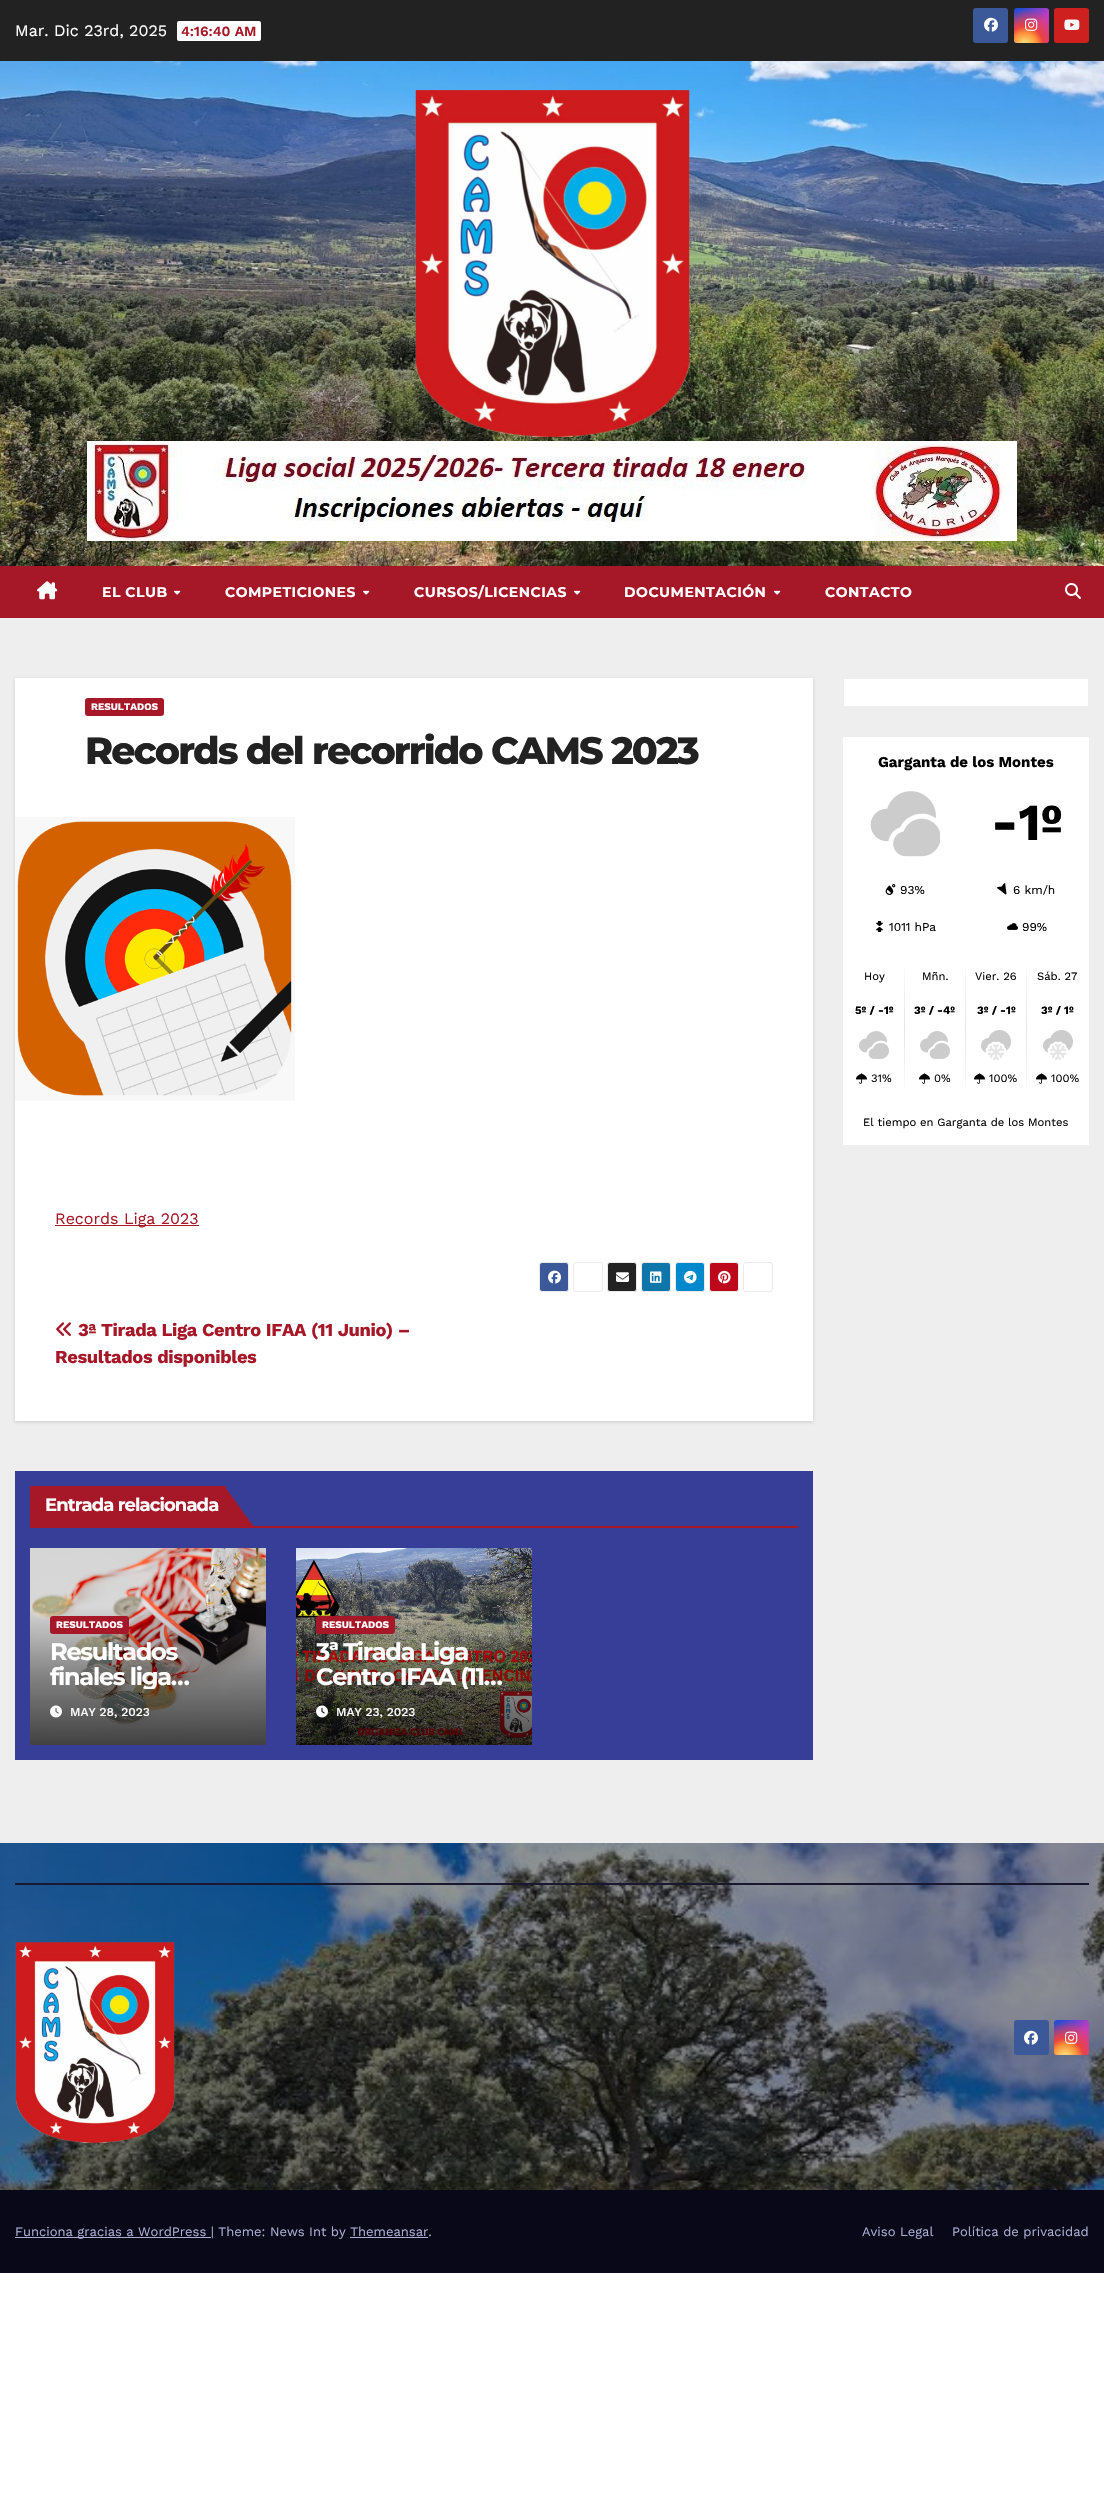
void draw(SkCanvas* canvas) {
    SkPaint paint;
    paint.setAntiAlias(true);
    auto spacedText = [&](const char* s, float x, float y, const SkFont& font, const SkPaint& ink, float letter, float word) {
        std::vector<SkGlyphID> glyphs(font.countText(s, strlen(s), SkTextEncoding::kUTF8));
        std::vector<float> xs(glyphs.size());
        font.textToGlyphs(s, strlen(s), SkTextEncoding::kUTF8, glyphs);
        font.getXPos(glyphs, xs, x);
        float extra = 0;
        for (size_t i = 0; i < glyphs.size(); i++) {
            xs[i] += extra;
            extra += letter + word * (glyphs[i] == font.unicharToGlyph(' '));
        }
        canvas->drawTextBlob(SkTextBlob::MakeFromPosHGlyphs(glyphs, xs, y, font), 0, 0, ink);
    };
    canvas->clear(0xFFFFFFFF);
    paint.setColor(0xFFEEEEEE);
    canvas->drawRect(SkRect::MakeXYWH(0, 618, 1104, 1225), paint);
    paint.setColor(0xFF222222);
    canvas->drawRect(SkRect::MakeXYWH(0, 0, 1104, 61), paint);
    SkFont font1(fontMgr->matchFamilyStyle("Work Sans", SkFontStyle::Normal()), 16);
    font1.setSubpixel(true);
    paint.setColor(0xFFFFFFFF);
    canvas->drawString("Mar. Dic 23rd, 2025", 15, 36, font1, paint);
    canvas->drawRoundRect(SkRect::MakeXYWH(177, 21, 84, 20), 2, 2, paint);
    SkFont font2(fontMgr->matchFamilyStyle("Work Sans", SkFontStyle(600, SkFontStyle::kNormal_Width, SkFontStyle::kUpright_Slant)), 14);
    font2.setSubpixel(true);
    paint.setColor(0xFFA61727);
    canvas->drawString("4:16:40 AM", 181, 36, font2, paint);
    paint.setColor(0xFF3B5998);
    canvas->drawRoundRect(SkRect::MakeXYWH(973, 8, 35, 35), 3, 3, paint);
    canvas->drawImageRect(SkImages::DeferredFromEncodedData(SkData::MakeFromFileName("img1.png")), SkRect::MakeXYWH(984, 17, 14, 15), SkSamplingOptions());
    {
        const SkColor colors[] = {0xFF234BD7, 0xFFC33CBE};
        const float stops[] = {0.12f, 0.58f};
        const SkPoint ends[] = {{1014, 8}, {1049, 43}};
        paint.setShader(SkGradientShader::MakeLinear(ends, colors, stops, 2, SkTileMode::kClamp));
        paint.setAlpha(255);
    }
    canvas->drawRoundRect(SkRect::MakeXYWH(1014, 8, 35, 35), 3, 3, paint);
    {
        const SkColor colors[] = {0xFFFFE17D, 0xFFFFCD69, 0xFFFA9137, 0xFFEB4141, 0x00EB4141};
        const float stops[] = {0, 0.1f, 0.28f, 0.42f, 0.82f};
        paint.setShader(SkGradientShader::MakeRadial({1025, 45}, 44, colors, stops, 5, SkTileMode::kClamp));
        paint.setAlpha(255);
    }
    canvas->drawRoundRect(SkRect::MakeXYWH(1014, 8, 35, 35), 3, 3, paint);
    canvas->drawImageRect(SkImages::DeferredFromEncodedData(SkData::MakeFromFileName("img2.png")), SkRect::MakeXYWH(1025, 18, 13, 13), SkSamplingOptions());
    paint.setShader(nullptr);
    paint.setColor(0xFFCD201F);
    canvas->drawRoundRect(SkRect::MakeXYWH(1054, 8, 35, 35), 3, 3, paint);
    canvas->drawImageRect(SkImages::DeferredFromEncodedData(SkData::MakeFromFileName("img3.png")), SkRect::MakeXYWH(1064, 19, 16, 11), SkSamplingOptions());
    canvas->drawImageRect(SkImages::DeferredFromEncodedData(SkData::MakeFromFileName("img4.png")), SkRect::MakeXYWH(0, 61, 1104, 505), SkSamplingOptions());
    canvas->drawImageRect(SkImages::DeferredFromEncodedData(SkData::MakeFromFileName("img5.png")), SkRect::MakeXYWH(415, 90, 275, 347), SkSamplingOptions());
    canvas->drawImageRect(SkImages::DeferredFromEncodedData(SkData::MakeFromFileName("img6.png")), SkRect::MakeXYWH(87, 441, 930, 100), SkSamplingOptions());
    paint.setColor(0xFFA61727);
    canvas->drawRect(SkRect::MakeXYWH(0, 566, 1104, 52), paint);
    canvas->drawImageRect(SkImages::DeferredFromEncodedData(SkData::MakeFromFileName("img7.png")), SkRect::MakeXYWH(37, 581, 21, 19), SkSamplingOptions());
    SkFont font3(fontMgr->matchFamilyStyle("Montserrat", SkFontStyle::Bold()), 14);
    font3.setSubpixel(true);
    paint.setColor(0xFFFFFFFF);
    spacedText("EL CLUB", 102, 597, font3, paint, 0.5f, 0);
    canvas->drawImageRect(SkImages::DeferredFromEncodedData(SkData::MakeFromFileName("img8.png")), SkRect::MakeXYWH(174, 590, 7, 5), SkSamplingOptions());
    spacedText("COMPETICIONES", 225, 597, font3, paint, 0.5f, 0);
    canvas->drawImageRect(SkImages::DeferredFromEncodedData(SkData::MakeFromFileName("img8.png")), SkRect::MakeXYWH(363, 590, 7, 5), SkSamplingOptions());
    spacedText("CURSOS/LICENCIAS", 414, 597, font3, paint, 0.5f, 0);
    canvas->drawImageRect(SkImages::DeferredFromEncodedData(SkData::MakeFromFileName("img8.png")), SkRect::MakeXYWH(574, 590, 7, 5), SkSamplingOptions());
    spacedText("DOCUMENTACIÓN", 624, 597, font3, paint, 0.5f, 0);
    canvas->drawImageRect(SkImages::DeferredFromEncodedData(SkData::MakeFromFileName("img8.png")), SkRect::MakeXYWH(774, 590, 7, 5), SkSamplingOptions());
    spacedText("CONTACTO", 825, 597, font3, paint, 0.5f, 0);
    canvas->drawImageRect(SkImages::DeferredFromEncodedData(SkData::MakeFromFileName("img9.png")), SkRect::MakeXYWH(1065, 583, 16, 16), SkSamplingOptions());
    paint.setColor(0x26000000);
    paint.setMaskFilter(SkMaskFilter::MakeBlur(kNormal_SkBlurStyle, 1.5f));
    canvas->drawRect(SkRect::MakeXYWH(15, 679, 798, 743), paint);
    paint.setMaskFilter(nullptr);
    paint.setColor(0xFFFFFFFF);
    canvas->drawRect(SkRect::MakeXYWH(15, 678, 798, 743), paint);
    paint.setColor(0xFFA61727);
    canvas->drawRoundRect(SkRect::MakeXYWH(85, 698, 79, 18), 3, 3, paint);
    SkFont font4(fontMgr->matchFamilyStyle("Work Sans", SkFontStyle::Bold()), 10);
    font4.setSubpixel(true);
    paint.setColor(0xFFFFFFFF);
    canvas->drawString("RESULTADOS", 91, 710, font4, paint);
    SkFont font5(fontMgr->matchFamilyStyle("Montserrat", SkFontStyle(800, SkFontStyle::kNormal_Width, SkFontStyle::kUpright_Slant)), 38);
    font5.setSubpixel(true);
    paint.setColor(0xFF222222);
    spacedText("Records del recorrido CAMS 2023", 85, 764, font5, paint, -1.9f, 0);
    canvas->drawImageRect(SkImages::DeferredFromEncodedData(SkData::MakeFromFileName("img10.png")), SkRect::MakeXYWH(15, 817, 280, 284), SkSamplingOptions());
    paint.setColor(0xFFA61727);
    canvas->drawRect(SkRect::MakeXYWH(55, 1225, 144, 1), paint);
    canvas->drawString("Records Liga 2023", 55, 1224, font1, paint);
    paint.setColor(0xFF3B5998);
    canvas->drawRoundRect(SkRect::MakeXYWH(539.5f, 1262.5f, 29, 29), 2.5f, 2.5f, paint);
    paint.setStyle(SkPaint::kStroke_Style);
    paint.setStrokeWidth(1);
    paint.setColor(0xFFEBEBEB);
    canvas->drawRoundRect(SkRect::MakeXYWH(539.5f, 1262.5f, 29, 29), 2.5f, 2.5f, paint);
    canvas->drawImageRect(SkImages::DeferredFromEncodedData(SkData::MakeFromFileName("img11.png")), SkRect::MakeXYWH(548, 1270, 13, 14), SkSamplingOptions());
    canvas->drawRoundRect(SkRect::MakeXYWH(573.5f, 1262.5f, 29, 29), 2.5f, 2.5f, paint);
    paint.setStyle(SkPaint::kFill_Style);
    paint.setColor(0xFF222222);
    canvas->drawRoundRect(SkRect::MakeXYWH(607.5f, 1262.5f, 29, 29), 2.5f, 2.5f, paint);
    paint.setStyle(SkPaint::kStroke_Style);
    paint.setColor(0xFFEBEBEB);
    canvas->drawRoundRect(SkRect::MakeXYWH(607.5f, 1262.5f, 29, 29), 2.5f, 2.5f, paint);
    canvas->drawImageRect(SkImages::DeferredFromEncodedData(SkData::MakeFromFileName("img12.png")), SkRect::MakeXYWH(616, 1272, 13, 10), SkSamplingOptions());
    paint.setStyle(SkPaint::kFill_Style);
    paint.setColor(0xFF0E76A8);
    canvas->drawRoundRect(SkRect::MakeXYWH(641.5f, 1262.5f, 29, 29), 2.5f, 2.5f, paint);
    paint.setStyle(SkPaint::kStroke_Style);
    paint.setColor(0xFFEBEBEB);
    canvas->drawRoundRect(SkRect::MakeXYWH(641.5f, 1262.5f, 29, 29), 2.5f, 2.5f, paint);
    canvas->drawImageRect(SkImages::DeferredFromEncodedData(SkData::MakeFromFileName("img13.png")), SkRect::MakeXYWH(650, 1271, 12, 12), SkSamplingOptions());
    paint.setStyle(SkPaint::kFill_Style);
    paint.setColor(0xFF0088CC);
    canvas->drawRoundRect(SkRect::MakeXYWH(675.5f, 1262.5f, 29, 29), 2.5f, 2.5f, paint);
    paint.setStyle(SkPaint::kStroke_Style);
    paint.setColor(0xFFEBEBEB);
    canvas->drawRoundRect(SkRect::MakeXYWH(675.5f, 1262.5f, 29, 29), 2.5f, 2.5f, paint);
    canvas->drawImageRect(SkImages::DeferredFromEncodedData(SkData::MakeFromFileName("img14.png")), SkRect::MakeXYWH(684, 1270, 13, 14), SkSamplingOptions());
    paint.setStyle(SkPaint::kFill_Style);
    paint.setColor(0xFFBD081C);
    canvas->drawRoundRect(SkRect::MakeXYWH(709.5f, 1262.5f, 29, 29), 2.5f, 2.5f, paint);
    paint.setStyle(SkPaint::kStroke_Style);
    paint.setColor(0xFFEBEBEB);
    canvas->drawRoundRect(SkRect::MakeXYWH(709.5f, 1262.5f, 29, 29), 2.5f, 2.5f, paint);
    canvas->drawImageRect(SkImages::DeferredFromEncodedData(SkData::MakeFromFileName("img15.png")), SkRect::MakeXYWH(718, 1270, 13, 14), SkSamplingOptions());
    canvas->drawRoundRect(SkRect::MakeXYWH(743.5f, 1262.5f, 29, 29), 2.5f, 2.5f, paint);
    canvas->drawImageRect(SkImages::DeferredFromEncodedData(SkData::MakeFromFileName("img16.png")), SkRect::MakeXYWH(56, 1322, 15, 14), SkSamplingOptions());
    SkFont font6(fontMgr->matchFamilyStyle("Work Sans", SkFontStyle::Bold()), 18.25f);
    font6.setSubpixel(true);
    paint.setStyle(SkPaint::kFill_Style);
    paint.setColor(0xFFA61727);
    spacedText("3ª Tirada Liga Centro IFAA (11 Junio) –", 78, 1336, font6, paint, -0.35f, 0);
    spacedText("Resultados disponibles", 55, 1363, font6, paint, -0.35f, 0);
    paint.setColor(0xFF373E98);
    canvas->drawRect(SkRect::MakeXYWH(15, 1471, 798, 289), paint);
    paint.setColor(0xFFA61727);
    canvas->drawRect(SkRect::MakeXYWH(30, 1526, 768, 2), paint);
    canvas->drawRect(SkRect::MakeXYWH(30, 1486, 196, 40), paint);
    SkFont font7(fontMgr->matchFamilyStyle("Montserrat", SkFontStyle::Bold()), 18);
    font7.setSubpixel(true);
    paint.setColor(0xFFFFFFFF);
    spacedText("Entrada relacionada", 45, 1511, font7, paint, -0.9f, 0);
    paint.setColor(0xFFA61727);
    canvas->drawPath(SkPathBuilder().moveTo(254, 1527).lineTo(225, 1527).lineTo(225, 1487).close().detach(), paint);
    canvas->drawImageRect(SkImages::DeferredFromEncodedData(SkData::MakeFromFileName("img17.png")), SkRect::MakeXYWH(30, 1548, 236, 197), SkSamplingOptions());
    canvas->drawRoundRect(SkRect::MakeXYWH(50, 1616, 79, 18), 3, 3, paint);
    paint.setColor(0xFFFFFFFF);
    canvas->drawString("RESULTADOS", 56, 1628, font4, paint);
    SkFont font8(fontMgr->matchFamilyStyle("Montserrat", SkFontStyle::Bold()), 24);
    font8.setSubpixel(true);
    spacedText("Resultados", 50, 1660, font8, paint, -1.25f, 0);
    canvas->save();
    canvas->clipRect(SkRect::MakeXYWH(50, 1639, 196, 50));
    spacedText("finales liga…", 50, 1685, font8, paint, -1.25f, 0);
    canvas->restore();
    canvas->drawImageRect(SkImages::DeferredFromEncodedData(SkData::MakeFromFileName("img18.png")), SkRect::MakeXYWH(50, 1705, 12, 13), SkSamplingOptions());
    SkFont font9(fontMgr->matchFamilyStyle("Work Sans", SkFontStyle(500, SkFontStyle::kNormal_Width, SkFontStyle::kUpright_Slant)), 12);
    font9.setSubpixel(true);
    canvas->drawString("MAY 28, 2023", 70, 1716, font9, paint);
    canvas->drawImageRect(SkImages::DeferredFromEncodedData(SkData::MakeFromFileName("img19.png")), SkRect::MakeXYWH(296, 1548, 236, 197), SkSamplingOptions());
    paint.setColor(0xFFA61727);
    canvas->drawRoundRect(SkRect::MakeXYWH(316, 1616, 79, 18), 3, 3, paint);
    paint.setColor(0xFFFFFFFF);
    canvas->drawString("RESULTADOS", 322, 1628, font4, paint);
    spacedText("3ª Tirada Liga", 316, 1660, font8, paint, -1.25f, 0);
    canvas->save();
    canvas->clipRect(SkRect::MakeXYWH(316, 1639, 196, 50));
    spacedText("Centro IFAA (11…", 316, 1685, font8, paint, -1.25f, 0);
    canvas->restore();
    canvas->drawImageRect(SkImages::DeferredFromEncodedData(SkData::MakeFromFileName("img20.png")), SkRect::MakeXYWH(316, 1705, 12, 13), SkSamplingOptions());
    canvas->drawString("MAY 23, 2023", 336, 1716, font9, paint);
    canvas->drawRect(SkRect::MakeXYWH(844, 679, 244, 27), paint);
    canvas->drawRect(SkRect::MakeXYWH(843, 737, 246, 408), paint);
    SkFont font10(fontMgr->matchFamilyStyle("Work Sans", SkFontStyle::Bold()), 15);
    font10.setSubpixel(true);
    paint.setColor(0xFF000000);
    canvas->drawString("Garganta de los Montes", 878, 767, font10, paint);
    canvas->drawImageRect(SkImages::DeferredFromEncodedData(SkData::MakeFromFileName("img21.png")), SkRect::MakeXYWH(870, 791, 70, 66), SkSamplingOptions());
    SkFont font11(fontMgr->matchFamilyStyle("Work Sans", SkFontStyle::Bold()), 52);
    font11.setSubpixel(true);
    canvas->drawString("-1º", 991, 840, font11, paint);
    canvas->drawImageRect(SkImages::DeferredFromEncodedData(SkData::MakeFromFileName("img22.png")), SkRect::MakeXYWH(885, 884, 11, 11), SkSamplingOptions());
    SkFont font12(fontMgr->matchFamilyStyle("Work Sans", SkFontStyle::Normal()), 12);
    font12.setSubpixel(true);
    canvas->drawString("93%", 900, 894, font12, paint);
    canvas->drawImageRect(SkImages::DeferredFromEncodedData(SkData::MakeFromFileName("img23.png")), SkRect::MakeXYWH(997, 883, 10, 12), SkSamplingOptions());
    canvas->drawString("6 km/h", 1013, 894, font12, paint);
    canvas->drawImageRect(SkImages::DeferredFromEncodedData(SkData::MakeFromFileName("img24.png")), SkRect::MakeXYWH(876, 921, 7, 11), SkSamplingOptions());
    canvas->drawString("1011 hPa", 889, 931, font12, paint);
    canvas->drawImageRect(SkImages::DeferredFromEncodedData(SkData::MakeFromFileName("img25.png")), SkRect::MakeXYWH(1007, 923, 11, 7), SkSamplingOptions());
    canvas->drawString("99%", 1022, 931, font12, paint);
    canvas->drawImageRect(SkImages::DeferredFromEncodedData(SkData::MakeFromFileName("img26.png")), SkRect::MakeXYWH(904, 967, 1, 122), SkSamplingOptions());
    SkFont font13(fontMgr->matchFamilyStyle("Work Sans", SkFontStyle::Normal()), 11.25f);
    font13.setSubpixel(true);
    canvas->drawString("Hoy", 864, 980, font13, paint);
    SkFont font14(fontMgr->matchFamilyStyle("Work Sans", SkFontStyle::Bold()), 11.25f);
    font14.setSubpixel(true);
    canvas->drawString("5º / -1º", 855, 1014, font14, paint);
    canvas->drawImageRect(SkImages::DeferredFromEncodedData(SkData::MakeFromFileName("img27.png")), SkRect::MakeXYWH(859, 1031, 30, 28), SkSamplingOptions());
    canvas->drawImageRect(SkImages::DeferredFromEncodedData(SkData::MakeFromFileName("img28.png")), SkRect::MakeXYWH(856, 1073, 11, 11), SkSamplingOptions());
    canvas->drawString("31%", 871, 1082, font13, paint);
    canvas->drawImageRect(SkImages::DeferredFromEncodedData(SkData::MakeFromFileName("img26.png")), SkRect::MakeXYWH(965, 967, 1, 122), SkSamplingOptions());
    canvas->drawString("Mñn.", 922, 980, font13, paint);
    canvas->drawString("3º / -4º", 914, 1014, font14, paint);
    canvas->drawImageRect(SkImages::DeferredFromEncodedData(SkData::MakeFromFileName("img27.png")), SkRect::MakeXYWH(920, 1031, 30, 28), SkSamplingOptions());
    canvas->drawImageRect(SkImages::DeferredFromEncodedData(SkData::MakeFromFileName("img28.png")), SkRect::MakeXYWH(919, 1073, 11, 11), SkSamplingOptions());
    canvas->drawString("0%", 934, 1082, font13, paint);
    canvas->drawImageRect(SkImages::DeferredFromEncodedData(SkData::MakeFromFileName("img26.png")), SkRect::MakeXYWH(1026, 967, 1, 122), SkSamplingOptions());
    canvas->drawString("Vier. 26", 975, 980, font13, paint);
    canvas->drawString("3º / -1º", 977, 1014, font14, paint);
    canvas->drawImageRect(SkImages::DeferredFromEncodedData(SkData::MakeFromFileName("img29.png")), SkRect::MakeXYWH(981, 1030, 30, 30), SkSamplingOptions());
    canvas->drawImageRect(SkImages::DeferredFromEncodedData(SkData::MakeFromFileName("img28.png")), SkRect::MakeXYWH(974, 1073, 11, 11), SkSamplingOptions());
    canvas->drawString("100%", 989, 1082, font13, paint);
    canvas->drawString("Sáb. 27", 1037, 980, font13, paint);
    canvas->drawString("3º / 1º", 1041, 1014, font14, paint);
    canvas->drawImageRect(SkImages::DeferredFromEncodedData(SkData::MakeFromFileName("img29.png")), SkRect::MakeXYWH(1043, 1030, 30, 30), SkSamplingOptions());
    canvas->drawImageRect(SkImages::DeferredFromEncodedData(SkData::MakeFromFileName("img28.png")), SkRect::MakeXYWH(1036, 1073, 11, 11), SkSamplingOptions());
    canvas->drawString("100%", 1051, 1082, font13, paint);
    canvas->drawString("El tiempo en Garganta de los Montes", 863, 1126, font13, paint);
    canvas->drawImageRect(SkImages::DeferredFromEncodedData(SkData::MakeFromFileName("img30.png")), SkRect::MakeXYWH(0, 1843, 1104, 347), SkSamplingOptions());
    paint.setColor(0xFF1A182E);
    canvas->drawRect(SkRect::MakeXYWH(15, 1883, 1074, 2), paint);
    canvas->drawImageRect(SkImages::DeferredFromEncodedData(SkData::MakeFromFileName("img31.png")), SkRect::MakeXYWH(15, 1942, 160, 201), SkSamplingOptions());
    paint.setColor(0xFF3B5998);
    canvas->drawRoundRect(SkRect::MakeXYWH(1014, 2020, 35, 35), 3, 3, paint);
    canvas->drawImageRect(SkImages::DeferredFromEncodedData(SkData::MakeFromFileName("img1.png")), SkRect::MakeXYWH(1024, 2030, 14, 15), SkSamplingOptions());
    {
        const SkColor colors[] = {0xFF234BD7, 0xFFC33CBE};
        const float stops[] = {0.12f, 0.58f};
        const SkPoint ends[] = {{1054, 2020}, {1089, 2055}};
        paint.setShader(SkGradientShader::MakeLinear(ends, colors, stops, 2, SkTileMode::kClamp));
        paint.setAlpha(255);
    }
    canvas->drawRoundRect(SkRect::MakeXYWH(1054, 2020, 35, 35), 3, 3, paint);
    {
        const SkColor colors[] = {0xFFFFE17D, 0xFFFFCD69, 0xFFFA9137, 0xFFEB4141, 0x00EB4141};
        const float stops[] = {0, 0.1f, 0.28f, 0.42f, 0.82f};
        paint.setShader(SkGradientShader::MakeRadial({1065, 2057}, 44, colors, stops, 5, SkTileMode::kClamp));
        paint.setAlpha(255);
    }
    canvas->drawRoundRect(SkRect::MakeXYWH(1054, 2020, 35, 35), 3, 3, paint);
    canvas->drawImageRect(SkImages::DeferredFromEncodedData(SkData::MakeFromFileName("img32.png")), SkRect::MakeXYWH(1065, 2031, 13, 13), SkSamplingOptions());
    paint.setShader(nullptr);
    paint.setColor(0xFF090818);
    canvas->drawRect(SkRect::MakeXYWH(0, 2190, 1104, 83), paint);
    paint.setColor(0xFFAAAED1);
    canvas->drawRect(SkRect::MakeXYWH(15, 2237, 196, 1), paint);
    SkFont font15(fontMgr->matchFamilyStyle("Work Sans", SkFontStyle::Normal()), 13);
    font15.setSubpixel(true);
    canvas->drawString("Funciona gracias a WordPress | Theme: News Int by Themeansar.", 15, 2236, font15, paint);
    canvas->drawRect(SkRect::MakeXYWH(350, 2237, 78, 1), paint);
    canvas->drawString("Aviso Legal", 862, 2236, font15, paint);
    canvas->drawString("Política de privacidad", 952, 2236, font15, paint);
}
